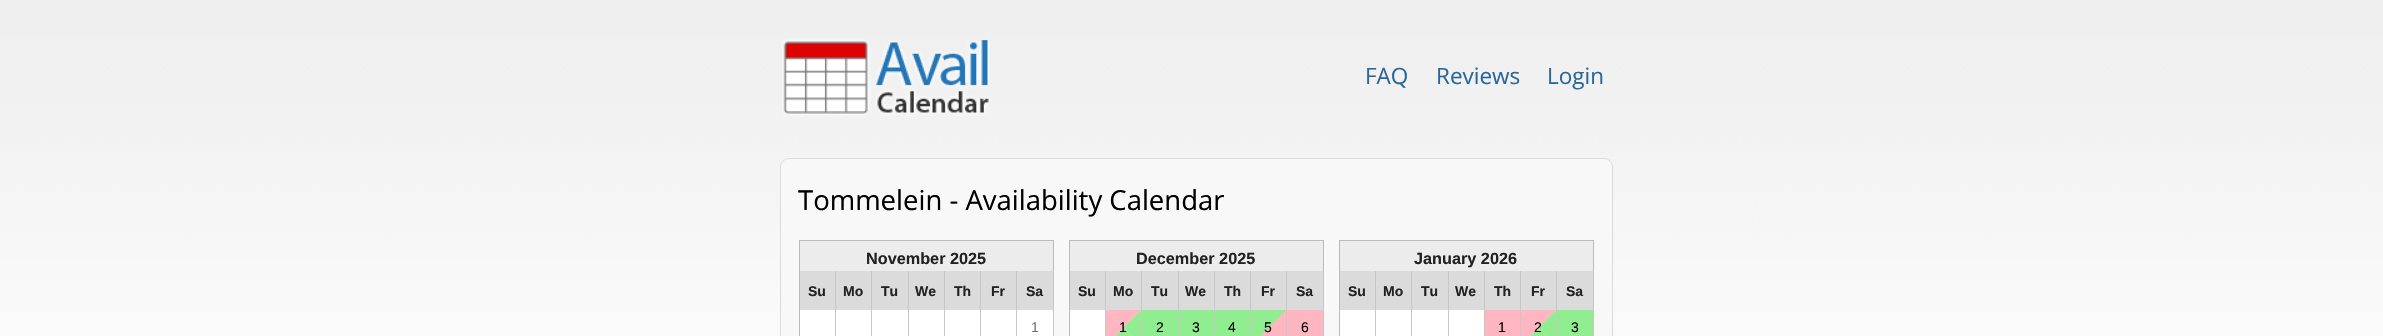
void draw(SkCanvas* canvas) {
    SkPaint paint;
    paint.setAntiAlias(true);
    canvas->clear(0xFFFFFFFF);
    canvas->drawImageRect(SkImages::DeferredFromEncodedData(SkData::MakeFromFileName("img1.png")), SkRect::MakeXYWH(0, 0, 2383, 336), SkSamplingOptions());
    canvas->drawImageRect(SkImages::DeferredFromEncodedData(SkData::MakeFromFileName("img2.png")), SkRect::MakeXYWH(782, 38, 208, 78), SkSamplingOptions());
    SkFont font1(fontMgr->matchFamilyStyle("Open Sans", SkFontStyle::Normal()), 22.5f);
    font1.setSubpixel(true);
    paint.setColor(0xFF296798);
    canvas->drawString("FAQ", 1365, 84, font1, paint);
    canvas->drawString("Reviews", 1436, 84, font1, paint);
    canvas->drawString("Login", 1547, 84, font1, paint);
    paint.setColor(0xFFF8F8F8);
    canvas->drawRoundRect(SkRect::MakeXYWH(780.5f, 158.5f, 832, 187), 8.5f, 8.5f, paint);
    paint.setStyle(SkPaint::kStroke_Style);
    paint.setStrokeWidth(1);
    paint.setColor(0xFFDBDBDB);
    canvas->drawRoundRect(SkRect::MakeXYWH(780.5f, 158.5f, 832, 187), 8.5f, 8.5f, paint);
    SkFont font2(fontMgr->matchFamilyStyle("Open Sans", SkFontStyle::Normal()), 27.5f);
    font2.setSubpixel(true);
    paint.setStyle(SkPaint::kFill_Style);
    paint.setColor(0xFF000000);
    canvas->drawString("Tommelein - Availability Calendar", 798, 210, font2, paint);
    paint.setColor(0xFFECECEC);
    canvas->drawRect(SkRect::MakeXYWH(800, 241, 253, 30), paint);
    paint.setColor(0xFFBBBBBB);
    canvas->drawRect(SkRect::MakeXYWH(799, 240, 255, 1), paint);
    canvas->drawRect(SkRect::MakeXYWH(1053, 240, 1, 31), paint);
    canvas->drawRect(SkRect::MakeXYWH(799, 240, 1, 96), paint);
    SkFont font3(fontMgr->matchFamilyStyle("Liberation Sans", SkFontStyle::Bold()), 16.25f);
    font3.setSubpixel(true);
    paint.setColor(0xFF222222);
    canvas->drawString("November 2025", 866, 264, font3, paint);
    paint.setColor(0xFFDBDBDB);
    canvas->drawRect(SkRect::MakeXYWH(800, 271, 35, 39), paint);
    SkFont font4(fontMgr->matchFamilyStyle("Liberation Sans", SkFontStyle::Bold()), 14);
    font4.setSubpixel(true);
    paint.setColor(0xFF222222);
    canvas->drawString("Su", 808, 296, font4, paint);
    paint.setColor(0xFFDBDBDB);
    canvas->drawRect(SkRect::MakeXYWH(836, 271, 35, 39), paint);
    paint.setColor(0xFF222222);
    canvas->drawString("Mo", 843, 296, font4, paint);
    paint.setColor(0xFFDBDBDB);
    canvas->drawRect(SkRect::MakeXYWH(872, 271, 36, 39), paint);
    paint.setColor(0xFF222222);
    canvas->drawString("Tu", 881, 296, font4, paint);
    paint.setColor(0xFFDBDBDB);
    canvas->drawRect(SkRect::MakeXYWH(909, 271, 35, 39), paint);
    paint.setColor(0xFF222222);
    canvas->drawString("We", 915, 296, font4, paint);
    paint.setColor(0xFFDBDBDB);
    canvas->drawRect(SkRect::MakeXYWH(945, 271, 35, 39), paint);
    paint.setColor(0xFF222222);
    canvas->drawString("Th", 954, 296, font4, paint);
    paint.setColor(0xFFDBDBDB);
    canvas->drawRect(SkRect::MakeXYWH(981, 271, 35, 39), paint);
    paint.setColor(0xFF222222);
    canvas->drawString("Fr", 991, 296, font4, paint);
    paint.setColor(0xFFDBDBDB);
    canvas->drawRect(SkRect::MakeXYWH(1017, 271, 36, 39), paint);
    paint.setColor(0xFF222222);
    canvas->drawString("Sa", 1026, 296, font4, paint);
    paint.setColor(0xFFFFFFFF);
    canvas->drawRect(SkRect::MakeXYWH(800, 310, 35, 26), paint);
    paint.setColor(0xFFC8C7C7);
    canvas->drawRect(SkRect::MakeXYWH(835, 271, 1, 65), paint);
    paint.setColor(0xFFFFFFFF);
    canvas->drawRect(SkRect::MakeXYWH(836, 310, 35, 26), paint);
    paint.setColor(0xFFC8C7C7);
    canvas->drawRect(SkRect::MakeXYWH(871, 271, 1, 65), paint);
    paint.setColor(0xFFFFFFFF);
    canvas->drawRect(SkRect::MakeXYWH(872, 310, 36, 26), paint);
    paint.setColor(0xFFC8C7C7);
    canvas->drawRect(SkRect::MakeXYWH(908, 271, 1, 65), paint);
    paint.setColor(0xFFFFFFFF);
    canvas->drawRect(SkRect::MakeXYWH(909, 310, 35, 26), paint);
    paint.setColor(0xFFC8C7C7);
    canvas->drawRect(SkRect::MakeXYWH(944, 271, 1, 65), paint);
    paint.setColor(0xFFFFFFFF);
    canvas->drawRect(SkRect::MakeXYWH(945, 310, 35, 26), paint);
    paint.setColor(0xFFC8C7C7);
    canvas->drawRect(SkRect::MakeXYWH(980, 271, 1, 65), paint);
    paint.setColor(0xFFFFFFFF);
    canvas->drawRect(SkRect::MakeXYWH(981, 310, 35, 26), paint);
    paint.setColor(0xFFC8C7C7);
    canvas->drawRect(SkRect::MakeXYWH(1016, 271, 1, 65), paint);
    paint.setColor(0xFFFFFFFF);
    canvas->drawRect(SkRect::MakeXYWH(1017, 310, 36, 26), paint);
    paint.setColor(0xFFC8C7C7);
    canvas->drawRect(SkRect::MakeXYWH(1053, 271, 1, 65), paint);
    SkFont font5(fontMgr->matchFamilyStyle("Liberation Sans", SkFontStyle::Normal()), 14);
    font5.setSubpixel(true);
    paint.setColor(0xFF747474);
    canvas->drawString("1", 1031, 332, font5, paint);
    paint.setColor(0xFFECECEC);
    canvas->drawRect(SkRect::MakeXYWH(1070, 241, 253, 95), paint);
    paint.setColor(0xFFBBBBBB);
    canvas->drawRect(SkRect::MakeXYWH(1069, 240, 255, 1), paint);
    canvas->drawRect(SkRect::MakeXYWH(1323, 240, 1, 31), paint);
    canvas->drawRect(SkRect::MakeXYWH(1069, 240, 1, 96), paint);
    paint.setColor(0xFF222222);
    canvas->drawString("December 2025", 1136, 264, font3, paint);
    paint.setColor(0xFFDBDBDB);
    canvas->drawRect(SkRect::MakeXYWH(1070, 271, 35, 39), paint);
    paint.setColor(0xFF222222);
    canvas->drawString("Su", 1078, 296, font4, paint);
    paint.setColor(0xFFDBDBDB);
    canvas->drawRect(SkRect::MakeXYWH(1106, 271, 35, 39), paint);
    paint.setColor(0xFF222222);
    canvas->drawString("Mo", 1113, 296, font4, paint);
    paint.setColor(0xFFDBDBDB);
    canvas->drawRect(SkRect::MakeXYWH(1142, 271, 36, 39), paint);
    paint.setColor(0xFF222222);
    canvas->drawString("Tu", 1151, 296, font4, paint);
    paint.setColor(0xFFDBDBDB);
    canvas->drawRect(SkRect::MakeXYWH(1179, 271, 35, 39), paint);
    paint.setColor(0xFF222222);
    canvas->drawString("We", 1185, 296, font4, paint);
    paint.setColor(0xFFDBDBDB);
    canvas->drawRect(SkRect::MakeXYWH(1215, 271, 35, 39), paint);
    paint.setColor(0xFF222222);
    canvas->drawString("Th", 1224, 296, font4, paint);
    paint.setColor(0xFFDBDBDB);
    canvas->drawRect(SkRect::MakeXYWH(1251, 271, 35, 39), paint);
    paint.setColor(0xFF222222);
    canvas->drawString("Fr", 1261, 296, font4, paint);
    paint.setColor(0xFFDBDBDB);
    canvas->drawRect(SkRect::MakeXYWH(1287, 271, 36, 39), paint);
    paint.setColor(0xFF222222);
    canvas->drawString("Sa", 1296, 296, font4, paint);
    paint.setColor(0xFFFFFFFF);
    canvas->drawRect(SkRect::MakeXYWH(1070, 310, 35, 26), paint);
    paint.setColor(0xFFC8C7C7);
    canvas->drawRect(SkRect::MakeXYWH(1105, 271, 1, 65), paint);
    canvas->drawRect(SkRect::MakeXYWH(1141, 271, 1, 65), paint);
    paint.setColor(0xFFFFB6C1);
    canvas->drawPath(SkPathBuilder().moveTo(1106, 310).lineTo(1141, 310).lineTo(1124, 327.5f).close().detach(), paint);
    paint.setColor(0xFF90EE90);
    canvas->drawPath(SkPathBuilder().moveTo(1141, 310).lineTo(1141, 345).lineTo(1124, 327.5f).close().detach(), paint);
    canvas->drawPath(SkPathBuilder().moveTo(1141, 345).lineTo(1106, 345).lineTo(1124, 327.5f).close().detach(), paint);
    paint.setColor(0xFFFFB6C1);
    canvas->drawPath(SkPathBuilder().moveTo(1106, 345).lineTo(1106, 310).lineTo(1124, 327.5f).close().detach(), paint);
    paint.setColor(0xFF000000);
    canvas->drawString("1", 1119, 332, font5, paint);
    paint.setColor(0xFF90EE90);
    canvas->drawRect(SkRect::MakeXYWH(1142, 310, 36, 26), paint);
    paint.setColor(0xFFC8C7C7);
    canvas->drawRect(SkRect::MakeXYWH(1178, 271, 1, 65), paint);
    paint.setColor(0xFF000000);
    canvas->drawString("2", 1156, 332, font5, paint);
    paint.setColor(0xFF90EE90);
    canvas->drawRect(SkRect::MakeXYWH(1179, 310, 35, 26), paint);
    paint.setColor(0xFFC8C7C7);
    canvas->drawRect(SkRect::MakeXYWH(1214, 271, 1, 65), paint);
    paint.setColor(0xFF000000);
    canvas->drawString("3", 1192, 332, font5, paint);
    paint.setColor(0xFF90EE90);
    canvas->drawRect(SkRect::MakeXYWH(1215, 310, 35, 26), paint);
    paint.setColor(0xFFC8C7C7);
    canvas->drawRect(SkRect::MakeXYWH(1250, 271, 1, 65), paint);
    paint.setColor(0xFF000000);
    canvas->drawString("4", 1228, 332, font5, paint);
    paint.setColor(0xFF90EE90);
    canvas->drawRect(SkRect::MakeXYWH(1251, 310, 35, 26), paint);
    paint.setColor(0xFFC8C7C7);
    canvas->drawRect(SkRect::MakeXYWH(1286, 271, 1, 65), paint);
    paint.setColor(0xFFFFB6C1);
    canvas->drawPath(SkPathBuilder().moveTo(1286, 310).lineTo(1286, 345).lineTo(1269, 327.5f).close().detach(), paint);
    canvas->drawPath(SkPathBuilder().moveTo(1286, 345).lineTo(1251, 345).lineTo(1269, 327.5f).close().detach(), paint);
    paint.setColor(0xFF90EE90);
    canvas->drawPath(SkPathBuilder().moveTo(1251, 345).lineTo(1251, 310).lineTo(1269, 327.5f).close().detach(), paint);
    paint.setColor(0xFF000000);
    canvas->drawString("5", 1264, 332, font5, paint);
    paint.setColor(0xFFFFB6C1);
    canvas->drawRect(SkRect::MakeXYWH(1287, 310, 36, 26), paint);
    paint.setColor(0xFFC8C7C7);
    canvas->drawRect(SkRect::MakeXYWH(1323, 271, 1, 65), paint);
    paint.setColor(0xFF000000);
    canvas->drawString("6", 1301, 332, font5, paint);
    paint.setColor(0xFFECECEC);
    canvas->drawRect(SkRect::MakeXYWH(1340, 241, 253, 95), paint);
    paint.setColor(0xFFBBBBBB);
    canvas->drawRect(SkRect::MakeXYWH(1339, 240, 255, 1), paint);
    canvas->drawRect(SkRect::MakeXYWH(1593, 240, 1, 31), paint);
    canvas->drawRect(SkRect::MakeXYWH(1339, 240, 1, 96), paint);
    paint.setColor(0xFF222222);
    canvas->drawString("January 2026", 1414, 264, font3, paint);
    paint.setColor(0xFFDBDBDB);
    canvas->drawRect(SkRect::MakeXYWH(1340, 271, 35, 39), paint);
    paint.setColor(0xFF222222);
    canvas->drawString("Su", 1348, 296, font4, paint);
    paint.setColor(0xFFDBDBDB);
    canvas->drawRect(SkRect::MakeXYWH(1376, 271, 35, 39), paint);
    paint.setColor(0xFF222222);
    canvas->drawString("Mo", 1383, 296, font4, paint);
    paint.setColor(0xFFDBDBDB);
    canvas->drawRect(SkRect::MakeXYWH(1412, 271, 36, 39), paint);
    paint.setColor(0xFF222222);
    canvas->drawString("Tu", 1421, 296, font4, paint);
    paint.setColor(0xFFDBDBDB);
    canvas->drawRect(SkRect::MakeXYWH(1449, 271, 35, 39), paint);
    paint.setColor(0xFF222222);
    canvas->drawString("We", 1455, 296, font4, paint);
    paint.setColor(0xFFDBDBDB);
    canvas->drawRect(SkRect::MakeXYWH(1485, 271, 35, 39), paint);
    paint.setColor(0xFF222222);
    canvas->drawString("Th", 1494, 296, font4, paint);
    paint.setColor(0xFFDBDBDB);
    canvas->drawRect(SkRect::MakeXYWH(1521, 271, 35, 39), paint);
    paint.setColor(0xFF222222);
    canvas->drawString("Fr", 1531, 296, font4, paint);
    paint.setColor(0xFFDBDBDB);
    canvas->drawRect(SkRect::MakeXYWH(1557, 271, 36, 39), paint);
    paint.setColor(0xFF222222);
    canvas->drawString("Sa", 1566, 296, font4, paint);
    paint.setColor(0xFFFFFFFF);
    canvas->drawRect(SkRect::MakeXYWH(1340, 310, 35, 26), paint);
    paint.setColor(0xFFC8C7C7);
    canvas->drawRect(SkRect::MakeXYWH(1375, 271, 1, 65), paint);
    paint.setColor(0xFFFFFFFF);
    canvas->drawRect(SkRect::MakeXYWH(1376, 310, 35, 26), paint);
    paint.setColor(0xFFC8C7C7);
    canvas->drawRect(SkRect::MakeXYWH(1411, 271, 1, 65), paint);
    paint.setColor(0xFFFFFFFF);
    canvas->drawRect(SkRect::MakeXYWH(1412, 310, 36, 26), paint);
    paint.setColor(0xFFC8C7C7);
    canvas->drawRect(SkRect::MakeXYWH(1448, 271, 1, 65), paint);
    paint.setColor(0xFFFFFFFF);
    canvas->drawRect(SkRect::MakeXYWH(1449, 310, 35, 26), paint);
    paint.setColor(0xFFC8C7C7);
    canvas->drawRect(SkRect::MakeXYWH(1484, 271, 1, 65), paint);
    paint.setColor(0xFFFFB6C1);
    canvas->drawRect(SkRect::MakeXYWH(1485, 310, 35, 26), paint);
    paint.setColor(0xFFC8C7C7);
    canvas->drawRect(SkRect::MakeXYWH(1520, 271, 1, 65), paint);
    paint.setColor(0xFF000000);
    canvas->drawString("1", 1498, 332, font5, paint);
    paint.setColor(0xFFC8C7C7);
    canvas->drawRect(SkRect::MakeXYWH(1556, 271, 1, 65), paint);
    paint.setColor(0xFFFFB6C1);
    canvas->drawPath(SkPathBuilder().moveTo(1521, 310).lineTo(1556, 310).lineTo(1539, 327.5f).close().detach(), paint);
    paint.setColor(0xFF90EE90);
    canvas->drawPath(SkPathBuilder().moveTo(1556, 310).lineTo(1556, 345).lineTo(1539, 327.5f).close().detach(), paint);
    canvas->drawPath(SkPathBuilder().moveTo(1556, 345).lineTo(1521, 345).lineTo(1539, 327.5f).close().detach(), paint);
    paint.setColor(0xFFFFB6C1);
    canvas->drawPath(SkPathBuilder().moveTo(1521, 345).lineTo(1521, 310).lineTo(1539, 327.5f).close().detach(), paint);
    paint.setColor(0xFF000000);
    canvas->drawString("2", 1534, 332, font5, paint);
    paint.setColor(0xFF90EE90);
    canvas->drawRect(SkRect::MakeXYWH(1557, 310, 36, 26), paint);
    paint.setColor(0xFFC8C7C7);
    canvas->drawRect(SkRect::MakeXYWH(1593, 271, 1, 65), paint);
    paint.setColor(0xFF000000);
    canvas->drawString("3", 1571, 332, font5, paint);
}
